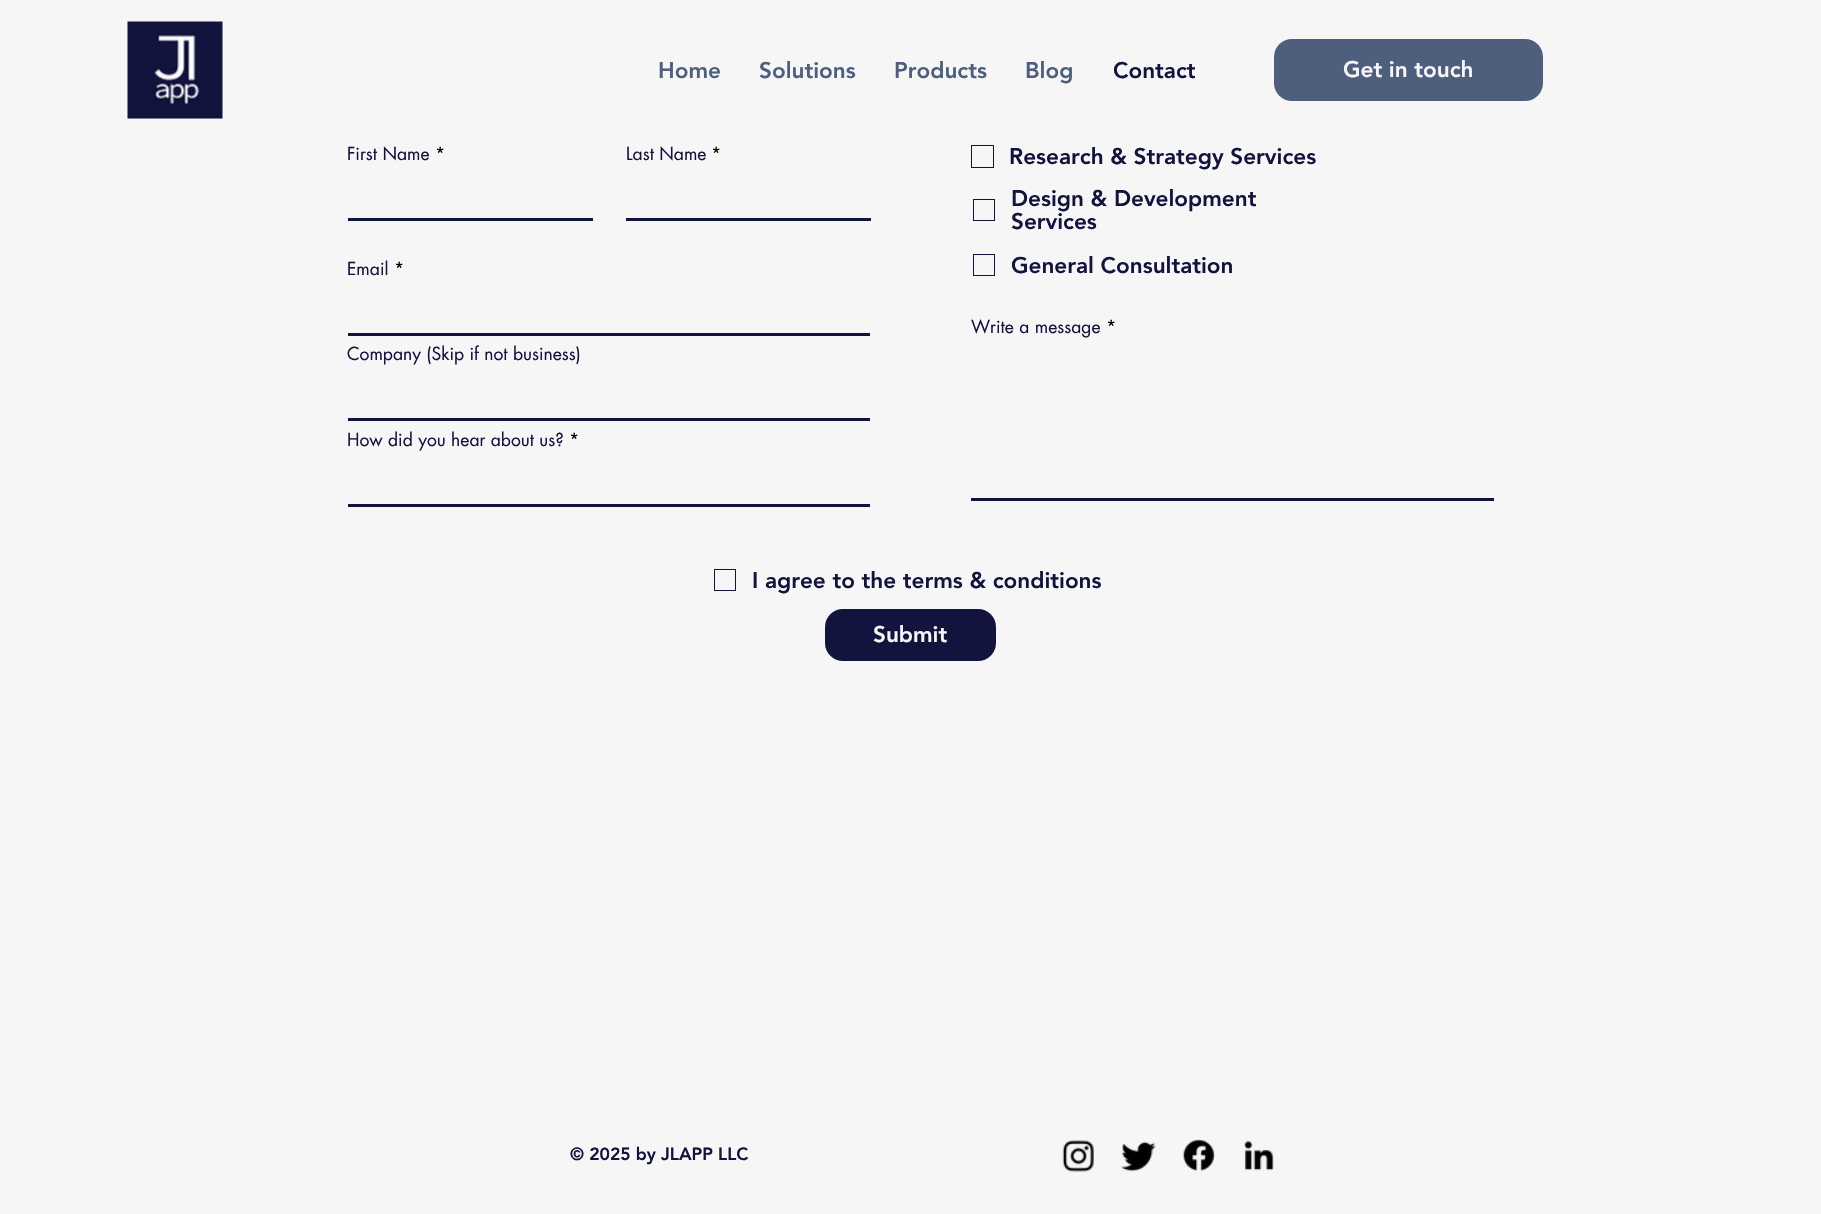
void draw(SkCanvas* canvas) {
    SkPaint paint;
    paint.setAntiAlias(true);
    canvas->clear(0xFFF6F6F6);
    canvas->drawImageRect(SkImages::DeferredFromEncodedData(SkData::MakeFromFileName("img1.png")), SkRect::MakeXYWH(127, 21, 96, 98), SkSamplingOptions());
    SkFont font1(fontMgr->matchFamilyStyle("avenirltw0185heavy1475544", SkFontStyle(900, SkFontStyle::kNormal_Width, SkFontStyle::kUpright_Slant)), 22.5f);
    font1.setSubpixel(true);
    paint.setColor(0xFF4D5F7C);
    canvas->drawString("Home", 658, 78, font1, paint);
    canvas->drawString("Solutions", 759, 78, font1, paint);
    canvas->drawString("Products", 894, 78, font1, paint);
    canvas->drawString("Blog", 1025, 78, font1, paint);
    paint.setColor(0xFF12143E);
    canvas->drawString("Contact", 1113, 78, font1, paint);
    paint.setColor(0xFF4D5F7C);
    canvas->drawRoundRect(SkRect::MakeXYWH(1274, 39, 269, 62), 18, 18, paint);
    paint.setColor(0xFFF6F6F6);
    canvas->drawString("Get in touch", 1343, 77, font1, paint);
    SkFont font2(fontMgr->matchFamilyStyle("futura", SkFontStyle::Normal()), 17.5f);
    font2.setSubpixel(true);
    paint.setColor(0xFF12143E);
    canvas->drawString("First Name", 347, 160, font2, paint);
    paint.setColor(0xFF000000);
    canvas->drawString("*", 435, 160, font2, paint);
    paint.setColor(0xFF12143E);
    canvas->drawRect(SkRect::MakeXYWH(348, 218, 245, 3), paint);
    canvas->drawString("Last Name", 626, 160, font2, paint);
    paint.setColor(0xFF000000);
    canvas->drawString("*", 711, 160, font2, paint);
    paint.setColor(0xFF12143E);
    canvas->drawRect(SkRect::MakeXYWH(626, 218, 245, 3), paint);
    paint.setStyle(SkPaint::kStroke_Style);
    paint.setStrokeWidth(1);
    canvas->drawRect(SkRect::MakeXYWH(971.5f, 145.5f, 22, 22), paint);
    paint.setStyle(SkPaint::kFill_Style);
    canvas->drawString("Research & Strategy Services", 1009, 164, font1, paint);
    paint.setStyle(SkPaint::kStroke_Style);
    canvas->drawRect(SkRect::MakeXYWH(973.5f, 199.5f, 21, 21), paint);
    paint.setStyle(SkPaint::kFill_Style);
    canvas->drawString("Design & Development", 1011, 206, font1, paint);
    canvas->drawString("Services", 1011, 229, font1, paint);
    canvas->drawString("Email", 347, 275, font2, paint);
    paint.setColor(0xFF000000);
    canvas->drawString("*", 394, 275, font2, paint);
    paint.setColor(0xFF12143E);
    canvas->drawRect(SkRect::MakeXYWH(348, 333, 522, 3), paint);
    paint.setStyle(SkPaint::kStroke_Style);
    canvas->drawRect(SkRect::MakeXYWH(973.5f, 254.5f, 21, 21), paint);
    paint.setStyle(SkPaint::kFill_Style);
    canvas->drawString("General Consultation", 1011, 273, font1, paint);
    canvas->drawString("Write a message", 971, 333, font2, paint);
    paint.setColor(0xFF000000);
    canvas->drawString("*", 1106, 333, font2, paint);
    paint.setColor(0xFF12143E);
    canvas->drawRect(SkRect::MakeXYWH(971, 498, 523, 3), paint);
    canvas->drawString("Company (Skip if not business)", 347, 360, font2, paint);
    canvas->drawRect(SkRect::MakeXYWH(348, 418, 522, 3), paint);
    canvas->drawString("How did you hear about us?", 347, 446, font2, paint);
    paint.setColor(0xFF000000);
    canvas->drawString("*", 569, 446, font2, paint);
    paint.setColor(0xFF12143E);
    canvas->drawRect(SkRect::MakeXYWH(348, 504, 522, 3), paint);
    paint.setStyle(SkPaint::kStroke_Style);
    canvas->drawRect(SkRect::MakeXYWH(714.5f, 569.5f, 21, 21), paint);
    paint.setStyle(SkPaint::kFill_Style);
    canvas->drawString("I agree to the terms & conditions", 752, 588, font1, paint);
    canvas->drawRoundRect(SkRect::MakeXYWH(825, 609, 171, 52), 18, 18, paint);
    paint.setColor(0xFFF6F6F6);
    canvas->drawString("Submit", 873, 642, font1, paint);
    SkFont font3(fontMgr->matchFamilyStyle("avenirltw0185heavy1475544", SkFontStyle(900, SkFontStyle::kNormal_Width, SkFontStyle::kUpright_Slant)), 17.5f);
    font3.setSubpixel(true);
    paint.setColor(0xFF12143E);
    canvas->drawString("© 2025 by JLAPP LLC", 570, 1160, font3, paint);
    canvas->drawImageRect(SkImages::DeferredFromEncodedData(SkData::MakeFromFileName("img2.png")), SkRect::MakeXYWH(1062, 1140, 32, 32), SkSamplingOptions());
    canvas->drawImageRect(SkImages::DeferredFromEncodedData(SkData::MakeFromFileName("img3.png")), SkRect::MakeXYWH(1121, 1141, 35, 31), SkSamplingOptions());
    canvas->drawImageRect(SkImages::DeferredFromEncodedData(SkData::MakeFromFileName("img4.png")), SkRect::MakeXYWH(1182, 1139, 33, 32), SkSamplingOptions());
    canvas->drawImageRect(SkImages::DeferredFromEncodedData(SkData::MakeFromFileName("img5.png")), SkRect::MakeXYWH(1244, 1141, 30, 30), SkSamplingOptions());
}
